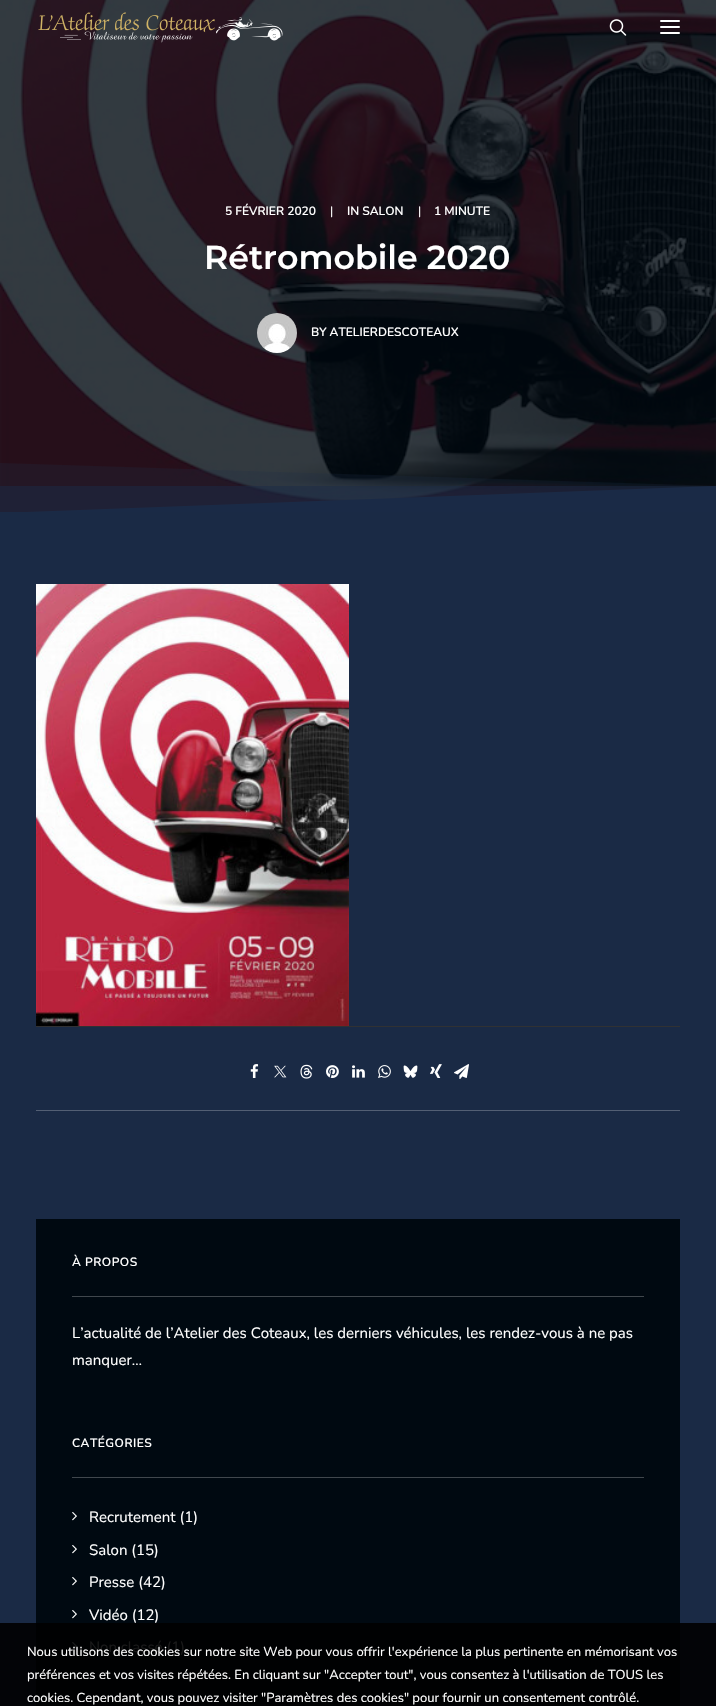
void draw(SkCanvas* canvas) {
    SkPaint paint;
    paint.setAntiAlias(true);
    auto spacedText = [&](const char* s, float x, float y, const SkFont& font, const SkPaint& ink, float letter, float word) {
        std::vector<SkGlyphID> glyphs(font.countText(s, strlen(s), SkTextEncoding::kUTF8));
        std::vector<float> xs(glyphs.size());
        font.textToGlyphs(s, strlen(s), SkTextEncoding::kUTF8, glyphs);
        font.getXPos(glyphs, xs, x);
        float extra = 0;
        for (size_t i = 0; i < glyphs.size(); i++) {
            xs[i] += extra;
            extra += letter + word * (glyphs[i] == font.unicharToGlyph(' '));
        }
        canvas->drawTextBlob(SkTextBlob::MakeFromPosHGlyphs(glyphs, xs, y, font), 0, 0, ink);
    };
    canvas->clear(0xFF1A2A45);
    paint.setColor(0xFF030407);
    canvas->drawRect(SkRect::MakeXYWH(0, 1623, 716, 83), paint);
    canvas->drawImageRect(SkImages::DeferredFromEncodedData(SkData::MakeFromFileName("img3.png")), SkRect::MakeXYWH(0, 0, 716, 512), SkSamplingOptions());
    canvas->drawImageRect(SkImages::DeferredFromEncodedData(SkData::MakeFromFileName("img1.png")), SkRect::MakeXYWH(38, 12, 245, 31), SkSamplingOptions());
    canvas->drawImageRect(SkImages::DeferredFromEncodedData(SkData::MakeFromFileName("img2.png")), SkRect::MakeXYWH(609, 19, 18, 17), SkSamplingOptions());
    paint.setColor(0xFFFFFFFF);
    canvas->drawRoundRect(SkRect::MakeXYWH(660, 26, 20, 2), 1, 1, paint);
    canvas->drawRoundRect(SkRect::MakeXYWH(660, 20, 20, 2), 1, 1, paint);
    canvas->drawRoundRect(SkRect::MakeXYWH(660, 32, 20, 2), 1, 1, paint);
    SkFont font1(fontMgr->matchFamilyStyle("Nunito", SkFontStyle(600, SkFontStyle::kNormal_Width, SkFontStyle::kUpright_Slant)), 12);
    font1.setSubpixel(true);
    canvas->drawString("5 FÉVRIER 2020", 225, 215, font1, paint);
    SkFont font2(fontMgr->matchFamilyStyle("Nunito", SkFontStyle::Normal()), 12);
    font2.setSubpixel(true);
    canvas->drawString("|", 330, 215, font2, paint);
    canvas->drawString("IN SALON", 347, 215, font1, paint);
    canvas->drawString("|", 418, 215, font2, paint);
    canvas->drawString("1 MINUTE", 434, 215, font1, paint);
    SkFont font3(fontMgr->matchFamilyStyle("Montserrat", SkFontStyle(600, SkFontStyle::kNormal_Width, SkFontStyle::kUpright_Slant)), 33.25f);
    font3.setSubpixel(true);
    canvas->drawString("Rétromobile 2020", 204, 269, font3, paint);
    canvas->drawImageRect(SkImages::DeferredFromEncodedData(SkData::MakeFromFileName("img4.png")), SkRect::MakeXYWH(257, 313, 40, 40), SkSamplingOptions());
    canvas->drawString("BY ATELIERDESCOTEAUX", 311, 336, font1, paint);
    canvas->save();
    canvas->clipRect(SkRect::MakeXYWH(0, 463, 716, 49));
    paint.setColor(0x401A2A45);
    canvas->drawPath(SkPathBuilder().moveTo(716, 513).lineTo(0, 513).lineTo(0, 463).lineTo(716, 486).close().detach(), paint);
    paint.setColor(0xFF1A2A45);
    canvas->drawPath(SkPathBuilder().moveTo(0, 513).lineTo(716, 513).lineTo(716, 486).close().detach(), paint);
    canvas->restore();
    paint.setColor(0x801A2A45);
    canvas->drawRect(SkRect::MakeXYWH(0, 486, 713, 26), paint);
    canvas->drawImageRect(SkImages::DeferredFromEncodedData(SkData::MakeFromFileName("img5.png")), SkRect::MakeXYWH(36, 584, 313, 442), SkSamplingOptions());
    paint.setColor(0xFF303133);
    canvas->drawRect(SkRect::MakeXYWH(36, 1026, 644, 1), paint);
    paint.setColor(0xFF535F74);
    canvas->drawRect(SkRect::MakeXYWH(36, 1110, 644, 1), paint);
    canvas->drawImageRect(SkImages::DeferredFromEncodedData(SkData::MakeFromFileName("img6.png")), SkRect::MakeXYWH(250, 1064, 9, 14), SkSamplingOptions());
    canvas->drawImageRect(SkImages::DeferredFromEncodedData(SkData::MakeFromFileName("img7.png")), SkRect::MakeXYWH(274, 1065, 13, 13), SkSamplingOptions());
    canvas->drawImageRect(SkImages::DeferredFromEncodedData(SkData::MakeFromFileName("img8.png")), SkRect::MakeXYWH(300, 1064, 13, 15), SkSamplingOptions());
    canvas->drawImageRect(SkImages::DeferredFromEncodedData(SkData::MakeFromFileName("img9.png")), SkRect::MakeXYWH(326, 1065, 13, 13), SkSamplingOptions());
    canvas->drawImageRect(SkImages::DeferredFromEncodedData(SkData::MakeFromFileName("img10.png")), SkRect::MakeXYWH(352, 1065, 13, 13), SkSamplingOptions());
    canvas->drawImageRect(SkImages::DeferredFromEncodedData(SkData::MakeFromFileName("img11.png")), SkRect::MakeXYWH(378, 1065, 13, 13), SkSamplingOptions());
    canvas->drawImageRect(SkImages::DeferredFromEncodedData(SkData::MakeFromFileName("img12.png")), SkRect::MakeXYWH(403, 1065, 15, 13), SkSamplingOptions());
    canvas->drawImageRect(SkImages::DeferredFromEncodedData(SkData::MakeFromFileName("img13.png")), SkRect::MakeXYWH(430, 1064, 12, 14), SkSamplingOptions());
    canvas->drawImageRect(SkImages::DeferredFromEncodedData(SkData::MakeFromFileName("img14.png")), SkRect::MakeXYWH(454, 1064, 15, 15), SkSamplingOptions());
    paint.setColor(0xFF000911);
    canvas->drawRect(SkRect::MakeXYWH(36, 1219, 644, 404), paint);
    paint.setColor(0xFF000102);
    canvas->drawRect(SkRect::MakeXYWH(36, 1623, 644, 83), paint);
    paint.setColor(0xFF40474D);
    canvas->drawRect(SkRect::MakeXYWH(72, 1296, 572, 1), paint);
    paint.setColor(0xFFFFFFFF);
    spacedText("À PROPOS", 72, 1266, font1, paint, 0.5f, 0);
    SkFont font4(fontMgr->matchFamilyStyle("Nunito", SkFontStyle::Normal()), 15);
    font4.setSubpixel(true);
    canvas->drawString("L’actualité de l’Atelier des Coteaux, les derniers véhicules, les rendez-vous à ne pas", 72, 1338, font4, paint);
    canvas->drawString("manquer…", 72, 1365, font4, paint);
    paint.setColor(0xFF40474D);
    canvas->drawRect(SkRect::MakeXYWH(72, 1477, 572, 1), paint);
    paint.setColor(0xFFFFFFFF);
    spacedText("CATÉGORIES", 72, 1447, font1, paint, 0.5f, 0);
    canvas->drawImageRect(SkImages::DeferredFromEncodedData(SkData::MakeFromFileName("img15.png")), SkRect::MakeXYWH(72, 1512, 5, 9), SkSamplingOptions());
    canvas->drawString("Recrutement (1)", 89, 1522, font4, paint);
    canvas->drawImageRect(SkImages::DeferredFromEncodedData(SkData::MakeFromFileName("img15.png")), SkRect::MakeXYWH(72, 1545, 5, 9), SkSamplingOptions());
    canvas->drawString("Salon (15)", 89, 1555, font4, paint);
    canvas->drawImageRect(SkImages::DeferredFromEncodedData(SkData::MakeFromFileName("img15.png")), SkRect::MakeXYWH(72, 1577, 5, 9), SkSamplingOptions());
    canvas->drawString("Presse (42)", 89, 1587, font4, paint);
    canvas->drawImageRect(SkImages::DeferredFromEncodedData(SkData::MakeFromFileName("img15.png")), SkRect::MakeXYWH(72, 1610, 5, 9), SkSamplingOptions());
    canvas->drawString("Vidéo (12)", 89, 1620, font4, paint);
    canvas->drawImageRect(SkImages::DeferredFromEncodedData(SkData::MakeFromFileName("img16.png")), SkRect::MakeXYWH(72, 1642, 5, 9), SkSamplingOptions());
    paint.setColor(0xFF191919);
    canvas->drawString("Non classé (1)", 89, 1652, font4, paint);
    SkFont font5(fontMgr->matchFamilyStyle("Nunito", SkFontStyle::Normal()), 13);
    font5.setSubpixel(true);
    paint.setColor(0xFFFFFFFF);
    canvas->drawString("Nous utilisons des cookies sur notre site Web pour vous offrir l'expérience la plus pertinente en mémorisant vos", 27, 1656, font5, paint);
    canvas->drawString("préférences et vos visites répétées. En cliquant sur \"Accepter tout\", vous consentez à l'utilisation de TOUS les", 27, 1679, font5, paint);
    canvas->drawString("cookies. Cependant, vous pouvez visiter \"Paramètres des cookies\" pour fournir un consentement contrôlé.", 27, 1702, font5, paint);
}
